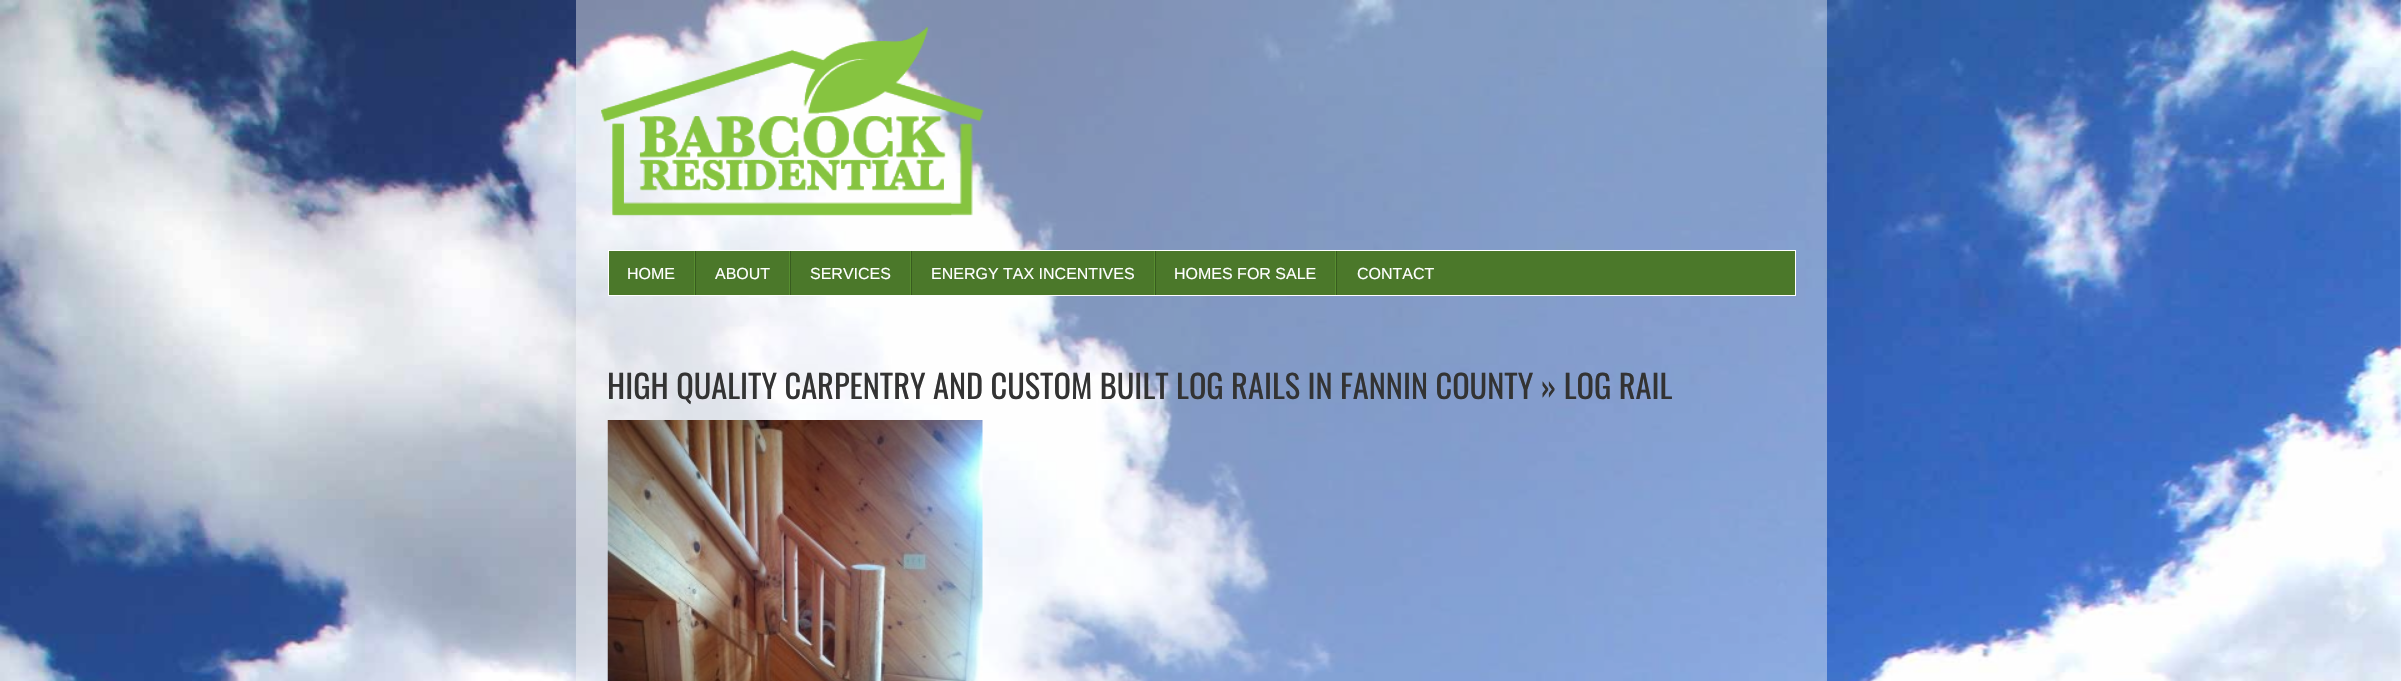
void draw(SkCanvas* canvas) {
    SkPaint paint;
    paint.setAntiAlias(true);
    canvas->clear(0xFFFFFFFF);
    canvas->drawImageRect(SkImages::DeferredFromEncodedData(SkData::MakeFromFileName("img1.png")), SkRect::MakeXYWH(0, 0, 2401, 681), SkSamplingOptions());
    paint.setColor(0x69FFFFFF);
    canvas->drawRect(SkRect::MakeXYWH(576, 0, 1251, 681), paint);
    canvas->drawImageRect(SkImages::DeferredFromEncodedData(SkData::MakeFromFileName("img2.png")), SkRect::MakeXYWH(601, 27, 383, 189), SkSamplingOptions());
    canvas->drawImageRect(SkImages::DeferredFromEncodedData(SkData::MakeFromFileName("img3.png")), SkRect::MakeXYWH(601, 27, 351, 189), SkSamplingOptions());
    paint.setColor(0xFF4B782A);
    canvas->drawRect(SkRect::MakeXYWH(608.5f, 250.5f, 1187, 45), paint);
    paint.setStyle(SkPaint::kStroke_Style);
    paint.setStrokeWidth(1);
    paint.setColor(0xFFFFFFFF);
    canvas->drawRect(SkRect::MakeXYWH(608.5f, 250.5f, 1187, 45), paint);
    paint.setStyle(SkPaint::kFill_Style);
    paint.setColor(0xFF578E30);
    canvas->drawRect(SkRect::MakeXYWH(694, 251, 1, 44), paint);
    SkFont font1(fontMgr->matchFamilyStyle("Liberation Sans", SkFontStyle::Normal()), 16);
    font1.setSubpixel(true);
    paint.setColor(0xFFFFFFFF);
    canvas->drawString("HOME", 627, 279, font1, paint);
    paint.setColor(0xFF578E30);
    canvas->drawRect(SkRect::MakeXYWH(789, 251, 1, 44), paint);
    paint.setColor(0xFF385C1F);
    canvas->drawRect(SkRect::MakeXYWH(695, 251, 1, 44), paint);
    paint.setColor(0xFFFFFFFF);
    canvas->drawString("ABOUT", 715, 279, font1, paint);
    paint.setColor(0xFF578E30);
    canvas->drawRect(SkRect::MakeXYWH(910, 251, 1, 44), paint);
    paint.setColor(0xFF385C1F);
    canvas->drawRect(SkRect::MakeXYWH(790, 251, 1, 44), paint);
    paint.setColor(0xFFFFFFFF);
    canvas->drawString("SERVICES", 810, 279, font1, paint);
    paint.setColor(0xFF578E30);
    canvas->drawRect(SkRect::MakeXYWH(1154, 251, 1, 44), paint);
    paint.setColor(0xFF385C1F);
    canvas->drawRect(SkRect::MakeXYWH(911, 251, 1, 44), paint);
    paint.setColor(0xFFFFFFFF);
    canvas->drawString("ENERGY TAX INCENTIVES", 931, 279, font1, paint);
    paint.setColor(0xFF578E30);
    canvas->drawRect(SkRect::MakeXYWH(1335, 251, 1, 44), paint);
    paint.setColor(0xFF385C1F);
    canvas->drawRect(SkRect::MakeXYWH(1155, 251, 1, 44), paint);
    paint.setColor(0xFFFFFFFF);
    canvas->drawString("HOMES FOR SALE", 1174, 279, font1, paint);
    paint.setColor(0xFF385C1F);
    canvas->drawRect(SkRect::MakeXYWH(1336, 251, 1, 44), paint);
    paint.setColor(0xFFFFFFFF);
    canvas->drawString("CONTACT", 1357, 279, font1, paint);
    SkFont font2(fontMgr->matchFamilyStyle("Oswald", SkFontStyle::Normal()), 32.4f);
    font2.setSubpixel(true);
    paint.setColor(0xFF333333);
    canvas->drawString("HIGH QUALITY CARPENTRY AND CUSTOM BUILT LOG RAILS IN FANNIN COUNTY » LOG RAIL", 607, 399, font2, paint);
    canvas->drawImageRect(SkImages::DeferredFromEncodedData(SkData::MakeFromFileName("img4.png")), SkRect::MakeXYWH(607, 420, 376, 261), SkSamplingOptions());
}
